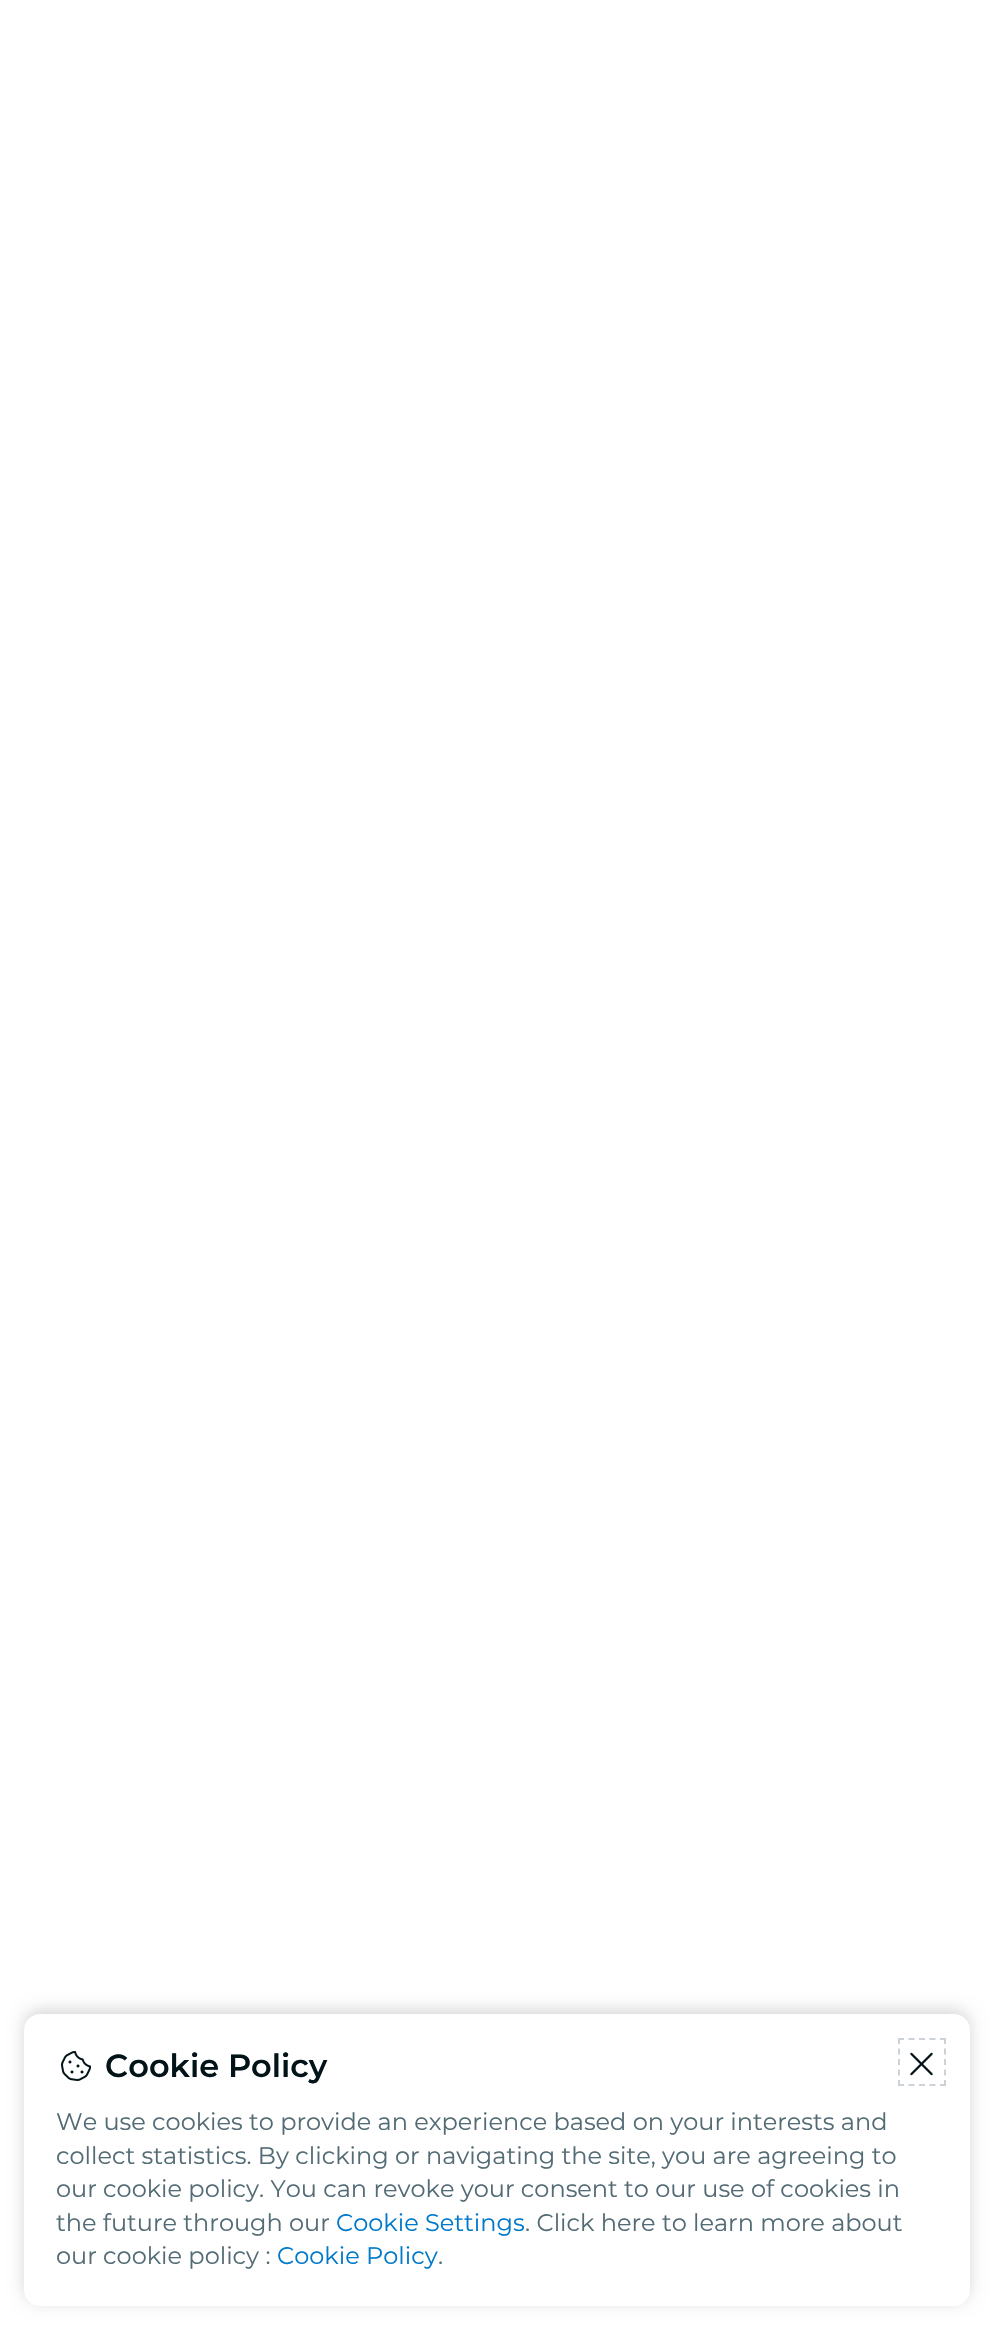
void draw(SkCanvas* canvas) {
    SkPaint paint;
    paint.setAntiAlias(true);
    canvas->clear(0xFFFFFFFF);
    paint.setColor(0x29000000);
    paint.setMaskFilter(SkMaskFilter::MakeBlur(kNormal_SkBlurStyle, 8));
    canvas->drawRoundRect(SkRect::MakeXYWH(24, 2010, 946, 292), 16, 16, paint);
    paint.setMaskFilter(nullptr);
    paint.setColor(0xFFFFFFFF);
    canvas->drawRoundRect(SkRect::MakeXYWH(24, 2014, 946, 292), 16, 16, paint);
    canvas->drawImageRect(SkImages::DeferredFromEncodedData(SkData::MakeFromFileName("img1.png")), SkRect::MakeXYWH(61, 2051, 30, 30), SkSamplingOptions());
    SkFont font1(fontMgr->matchFamilyStyle("Montserrat", SkFontStyle(600, SkFontStyle::kNormal_Width, SkFontStyle::kUpright_Slant)), 32);
    font1.setSubpixel(true);
    paint.setColor(0xFF031419);
    canvas->drawString("Cookie Policy", 105, 2077, font1, paint);
    SkFont font2(fontMgr->matchFamilyStyle("Montserrat", SkFontStyle::Normal()), 24);
    font2.setSubpixel(true);
    paint.setColor(0xFF536B75);
    canvas->drawString("We use cookies to provide an experience based on your interests and", 56, 2130, font2, paint);
    canvas->drawString("collect statistics. By clicking or navigating the site, you are agreeing to", 56, 2164, font2, paint);
    canvas->drawString("our cookie policy. You can revoke your consent to our use of cookies in", 56, 2197, font2, paint);
    canvas->drawString("the future through our", 56, 2231, font2, paint);
    paint.setColor(0xFF0079CA);
    canvas->drawString("Cookie Settings", 336, 2231, font2, paint);
    paint.setColor(0xFF536B75);
    canvas->drawString(". Click here to learn more about", 525, 2231, font2, paint);
    canvas->drawString("our cookie policy :", 56, 2264, font2, paint);
    paint.setColor(0xFF0079CA);
    canvas->drawString("Cookie Policy", 277, 2264, font2, paint);
    paint.setColor(0xFF536B75);
    canvas->drawString(".", 438, 2264, font2, paint);
    paint.setStyle(SkPaint::kStroke_Style);
    paint.setStrokeWidth(2);
    paint.setColor(0xFFCCD2D8);
    paint.setPathEffect(SkDashPathEffect::Make({{6, 4.5f}}, 0));
    canvas->drawPath(SkPathBuilder().moveTo(898, 2039).lineTo(946, 2039).moveTo(945, 2038).lineTo(945, 2086).moveTo(898, 2085).lineTo(946, 2085).moveTo(899, 2038).lineTo(899, 2086).detach(), paint);
    paint.setPathEffect(nullptr);
    canvas->drawImageRect(SkImages::DeferredFromEncodedData(SkData::MakeFromFileName("img2.png")), SkRect::MakeXYWH(910, 2052, 23, 24), SkSamplingOptions());
}
